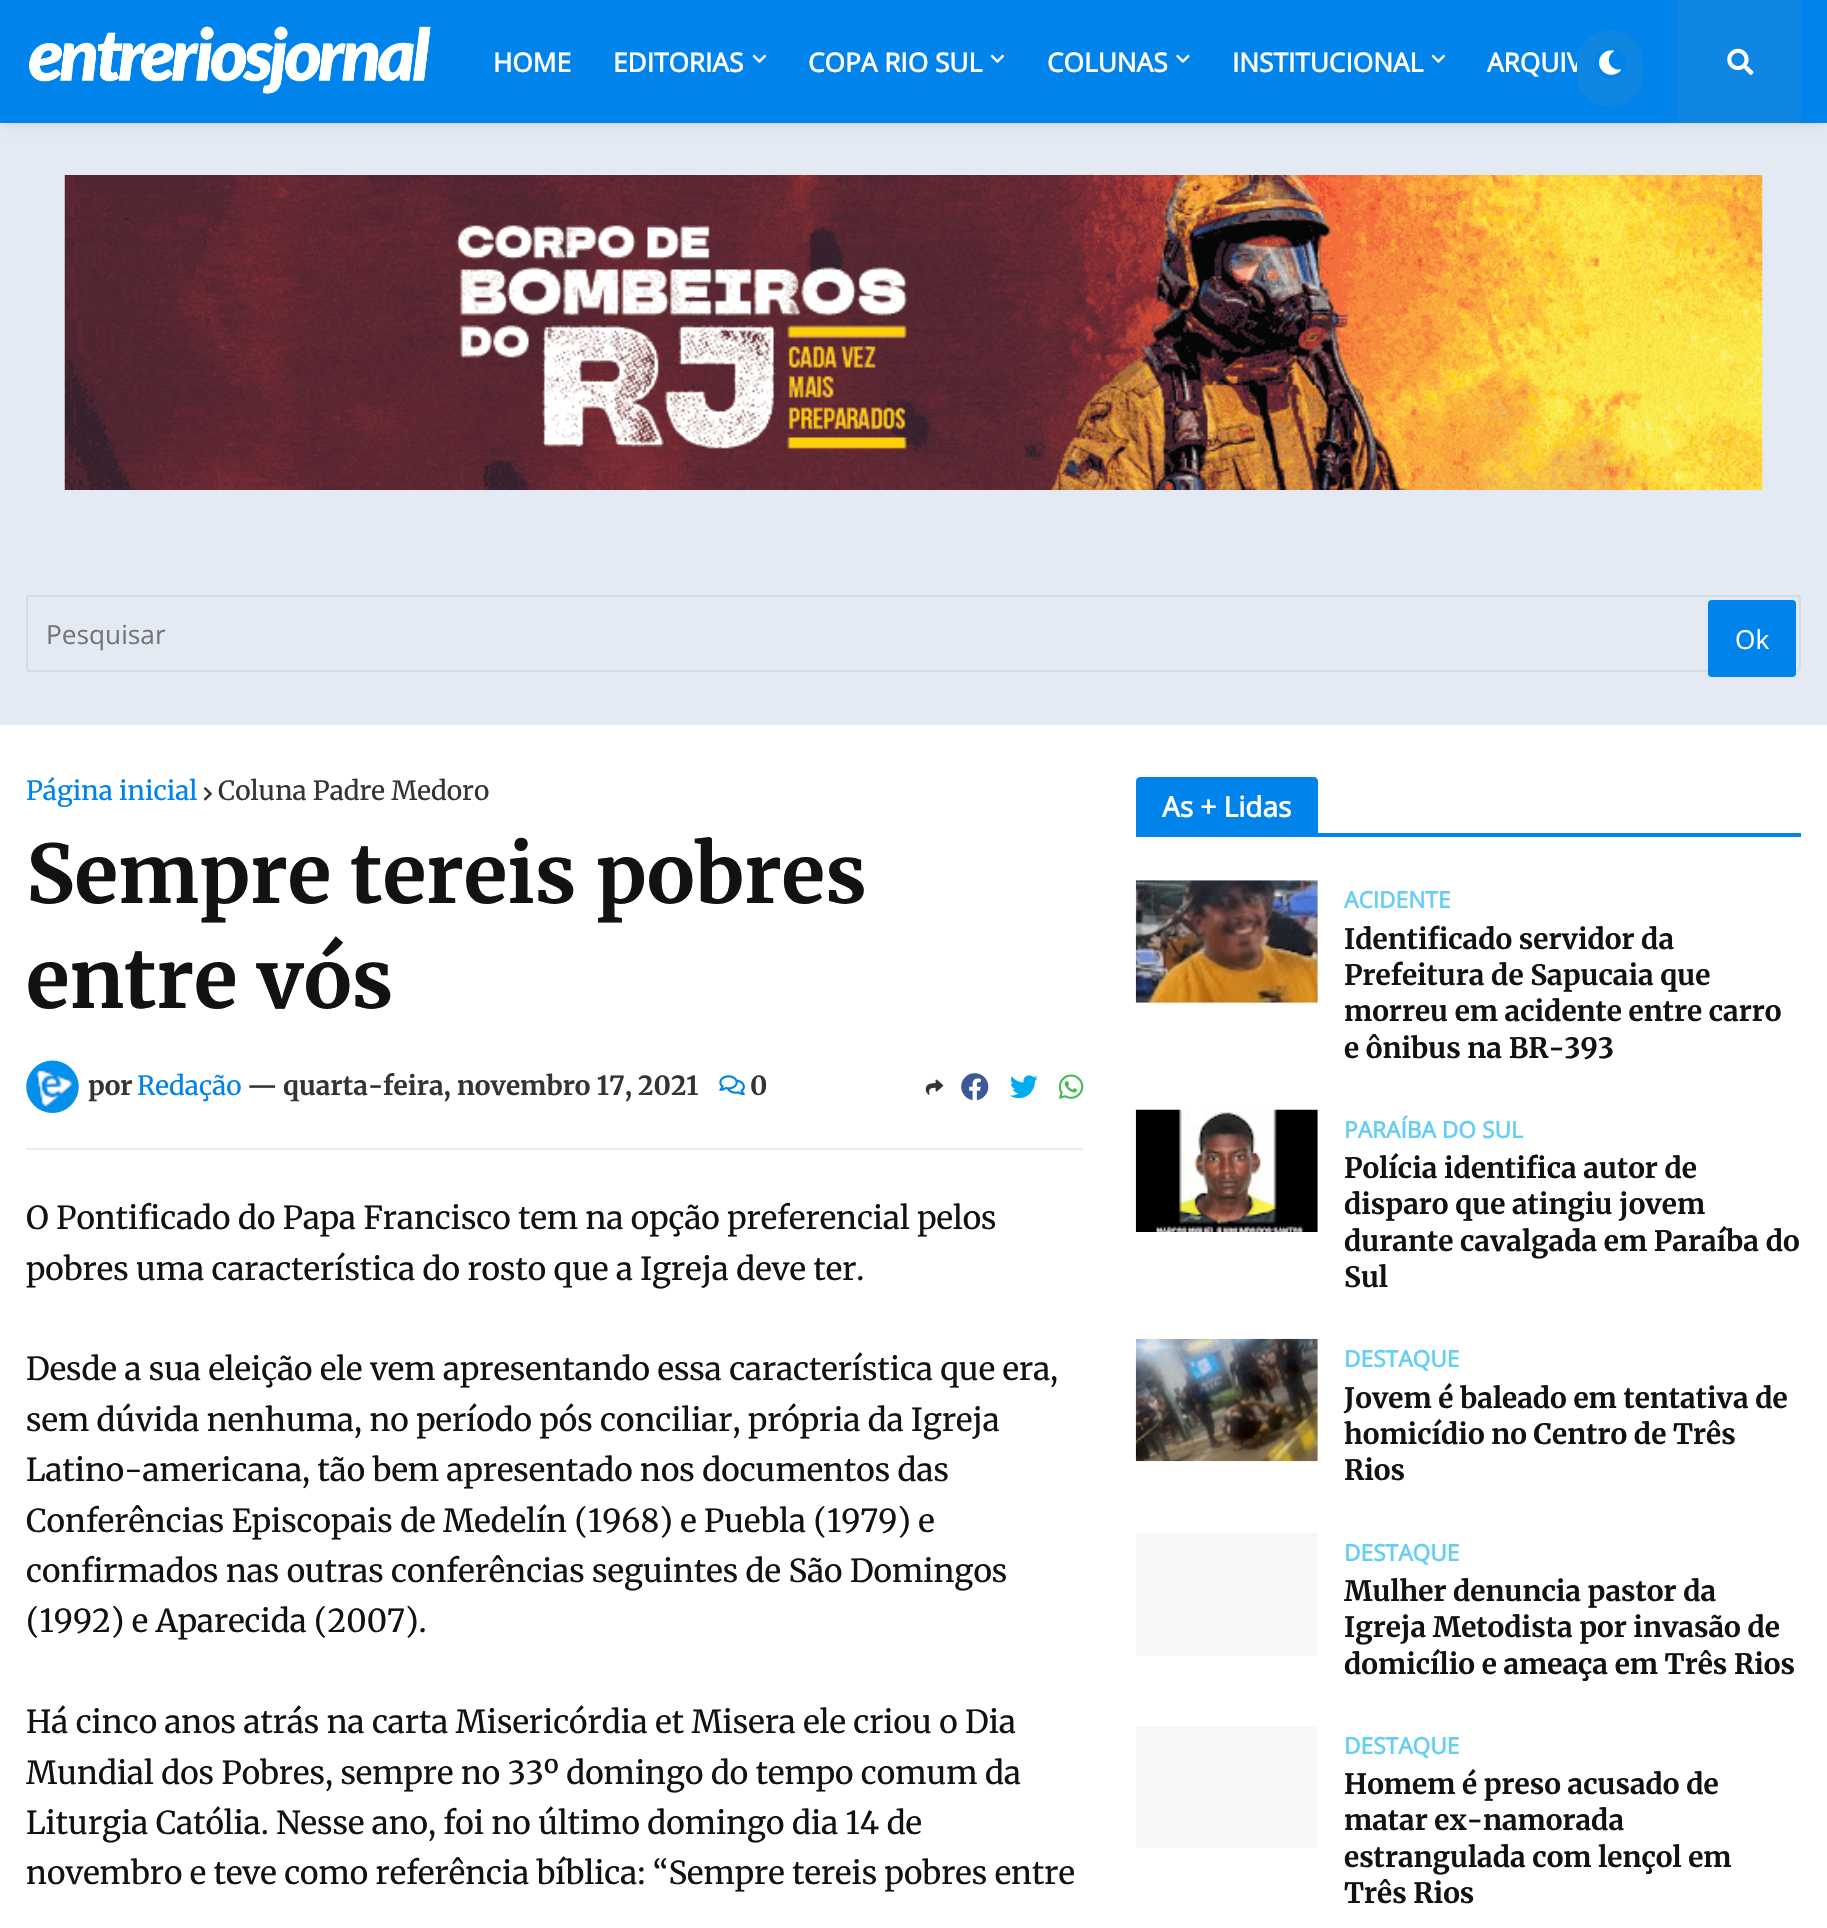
void draw(SkCanvas* canvas) {
    SkPaint paint;
    paint.setAntiAlias(true);
    canvas->clear(0xFFFFFFFF);
    paint.setColor(0xFFE3EAF3);
    canvas->drawRect(SkRect::MakeXYWH(0, 123, 1827, 602), paint);
    paint.setColor(0x1A000000);
    paint.setMaskFilter(SkMaskFilter::MakeBlur(kNormal_SkBlurStyle, 4.5f));
    canvas->drawRect(SkRect::MakeXYWH(0, 2, 1827, 122), paint);
    paint.setMaskFilter(nullptr);
    paint.setColor(0xFF0084EB);
    canvas->drawRect(SkRect::MakeXYWH(0, 0, 1827, 123), paint);
    canvas->drawImageRect(SkImages::DeferredFromEncodedData(SkData::MakeFromFileName("img1.png")), SkRect::MakeXYWH(29, 26, 402, 68), SkSamplingOptions());
    SkFont font1(fontMgr->matchFamilyStyle("Open Sans", SkFontStyle::Bold()), 26.25f);
    font1.setSubpixel(true);
    paint.setColor(0xFFFFFFFF);
    canvas->drawString("HOME", 493, 72, font1, paint);
    canvas->drawString("EDITORIAS", 613, 72, font1, paint);
    canvas->drawImageRect(SkImages::DeferredFromEncodedData(SkData::MakeFromFileName("img2.png")), SkRect::MakeXYWH(752, 54, 15, 9), SkSamplingOptions());
    canvas->drawString("COPA RIO SUL", 808, 72, font1, paint);
    canvas->drawImageRect(SkImages::DeferredFromEncodedData(SkData::MakeFromFileName("img2.png")), SkRect::MakeXYWH(990, 54, 15, 9), SkSamplingOptions());
    canvas->drawString("COLUNAS", 1047, 72, font1, paint);
    canvas->drawImageRect(SkImages::DeferredFromEncodedData(SkData::MakeFromFileName("img3.png")), SkRect::MakeXYWH(1176, 54, 14, 9), SkSamplingOptions());
    canvas->drawString("INSTITUCIONAL", 1232, 72, font1, paint);
    canvas->drawImageRect(SkImages::DeferredFromEncodedData(SkData::MakeFromFileName("img2.png")), SkRect::MakeXYWH(1431, 54, 15, 9), SkSamplingOptions());
    canvas->drawString("ARQUIV", 1487, 72, font1, paint);
    paint.setColor(0xFF0084EB);
    canvas->drawRect(SkRect::MakeXYWH(1577, 53, 6, 16), paint);
    paint.setColor(0xFF1086E3);
    canvas->drawRoundRect(SkRect::MakeXYWH(1577, 30, 66, 77), 33, 33, paint);
    paint.setColor(0xFF0084EB);
    canvas->drawCircle(1610, 63, 16, paint);
    canvas->drawImageRect(SkImages::DeferredFromEncodedData(SkData::MakeFromFileName("img4.png")), SkRect::MakeXYWH(1599, 50, 22, 25), SkSamplingOptions());
    paint.setColor(0xFF1086E3);
    canvas->drawRect(SkRect::MakeXYWH(1678, 0, 123, 123), paint);
    canvas->drawImageRect(SkImages::DeferredFromEncodedData(SkData::MakeFromFileName("img5.png")), SkRect::MakeXYWH(1727, 48, 27, 27), SkSamplingOptions());
    canvas->drawImageRect(SkImages::DeferredFromEncodedData(SkData::MakeFromFileName("img6.png")), SkRect::MakeXYWH(64, 175, 1699, 315), SkSamplingOptions());
    paint.setStyle(SkPaint::kStroke_Style);
    paint.setStrokeWidth(2);
    paint.setColor(0xFFD6DBE2);
    canvas->drawRoundRect(SkRect::MakeXYWH(27, 596, 1773, 75), 3, 3, paint);
    SkFont font2(fontMgr->matchFamilyStyle("Open Sans", SkFontStyle::Normal()), 26.25f);
    font2.setSubpixel(true);
    paint.setStyle(SkPaint::kFill_Style);
    paint.setColor(0xFF757575);
    canvas->drawString("Pesquisar", 46, 644, font2, paint);
    paint.setColor(0xFF0084EB);
    canvas->drawRoundRect(SkRect::MakeXYWH(1708, 600, 88, 77), 4, 4, paint);
    paint.setColor(0xFFFFFFFF);
    canvas->drawString("Ok", 1735, 649, font2, paint);
    paint.setColor(0xFFEBEBEB);
    canvas->drawRect(SkRect::MakeXYWH(26, 1148, 1057, 2), paint);
    SkFont font3(fontMgr->matchFamilyStyle("Merriweather", SkFontStyle::Normal()), 26.25f);
    font3.setSubpixel(true);
    paint.setColor(0xFF0084EB);
    canvas->drawString("Página inicial", 26, 800, font3, paint);
    canvas->drawImageRect(SkImages::DeferredFromEncodedData(SkData::MakeFromFileName("img7.png")), SkRect::MakeXYWH(203, 787, 9, 14), SkSamplingOptions());
    paint.setColor(0xFF343434);
    canvas->drawString("Coluna Padre Medoro", 218, 800, font3, paint);
    SkFont font4(fontMgr->matchFamilyStyle("Merriweather", SkFontStyle::Bold()), 80.5f);
    font4.setSubpixel(true);
    paint.setColor(0xFF121212);
    canvas->drawString("Sempre tereis pobres", 26, 903, font4, paint);
    canvas->drawString("entre vós", 26, 1008, font4, paint);
    paint.setColor(0xFFF7F7F7);
    canvas->drawRoundRect(SkRect::MakeXYWH(26, 1061, 53, 52), 26, 26, paint);
    canvas->drawImageRect(SkImages::DeferredFromEncodedData(SkData::MakeFromFileName("img8.png")), SkRect::MakeXYWH(26, 1060, 53, 53), SkSamplingOptions());
    SkFont font5(fontMgr->matchFamilyStyle("Merriweather", SkFontStyle::Bold()), 26.25f);
    font5.setSubpixel(true);
    paint.setColor(0xFF343434);
    canvas->drawString("por", 88, 1095, font5, paint);
    paint.setColor(0xFF0084EB);
    canvas->drawString("Redação", 137, 1095, font3, paint);
    paint.setColor(0xFF343434);
    canvas->drawString("—", 247, 1095, font5, paint);
    canvas->drawString("quarta-feira, novembro 17, 2021", 283, 1095, font5, paint);
    canvas->drawImageRect(SkImages::DeferredFromEncodedData(SkData::MakeFromFileName("img9.png")), SkRect::MakeXYWH(719, 1075, 26, 21), SkSamplingOptions());
    canvas->drawString("0", 750, 1095, font5, paint);
    canvas->drawImageRect(SkImages::DeferredFromEncodedData(SkData::MakeFromFileName("img10.png")), SkRect::MakeXYWH(925, 1079, 19, 16), SkSamplingOptions());
    canvas->drawImageRect(SkImages::DeferredFromEncodedData(SkData::MakeFromFileName("img11.png")), SkRect::MakeXYWH(961, 1073, 28, 28), SkSamplingOptions());
    canvas->drawImageRect(SkImages::DeferredFromEncodedData(SkData::MakeFromFileName("img12.png")), SkRect::MakeXYWH(1009, 1075, 29, 24), SkSamplingOptions());
    canvas->drawImageRect(SkImages::DeferredFromEncodedData(SkData::MakeFromFileName("img13.png")), SkRect::MakeXYWH(1058, 1074, 26, 25), SkSamplingOptions());
    SkFont font6(fontMgr->matchFamilyStyle("Merriweather", SkFontStyle::Normal()), 31.5f);
    font6.setSubpixel(true);
    paint.setColor(0xFF121212);
    canvas->drawString("O Pontificado do Papa Francisco tem na opção preferencial pelos", 26, 1229, font6, paint);
    canvas->drawString("pobres uma característica do rosto que a Igreja deve ter.", 26, 1280, font6, paint);
    canvas->drawString("Desde a sua eleição ele vem apresentando essa característica que era,", 26, 1380, font6, paint);
    canvas->drawString("sem dúvida nenhuma, no período pós conciliar, própria da Igreja", 26, 1431, font6, paint);
    canvas->drawString("Latino-americana, tão bem apresentado nos documentos das", 26, 1481, font6, paint);
    canvas->drawString("Conferências Episcopais de Medelín (1968) e Puebla (1979) e", 26, 1532, font6, paint);
    canvas->drawString("confirmados nas outras conferências seguintes de São Domingos", 26, 1582, font6, paint);
    canvas->drawString("(1992) e Aparecida (2007).", 26, 1632, font6, paint);
    canvas->drawString("Há cinco anos atrás na carta Misericórdia et Misera ele criou o Dia", 26, 1733, font6, paint);
    canvas->drawString("Mundial dos Pobres, sempre no 33º domingo do tempo comum da", 26, 1784, font6, paint);
    canvas->drawString("Liturgia Católia. Nesse ano, foi no último domingo dia 14 de", 26, 1834, font6, paint);
    canvas->drawString("novembro e teve como referência bíblica: “Sempre tereis pobres entre", 26, 1884, font6, paint);
    paint.setColor(0xFF0084EB);
    canvas->drawRect(SkRect::MakeXYWH(1318, 833, 483, 4), paint);
    canvas->drawPath(SkPathBuilder().moveTo(1140, 777).lineTo(1314, 777).cubicTo(1316, 777, 1318, 779, 1318, 781).lineTo(1318, 837).lineTo(1136, 837).lineTo(1136, 781).cubicTo(1136, 779, 1138, 777, 1140, 777).close().detach(), paint);
    SkFont font7(fontMgr->matchFamilyStyle("Open Sans", SkFontStyle::Bold()), 28);
    font7.setSubpixel(true);
    paint.setColor(0xFFFFFFFF);
    canvas->drawString("As + Lidas", 1162, 817, font7, paint);
    paint.setColor(0xFFF7F7F7);
    canvas->drawRect(SkRect::MakeXYWH(1136, 880, 182, 123), paint);
    canvas->drawImageRect(SkImages::DeferredFromEncodedData(SkData::MakeFromFileName("img14.png")), SkRect::MakeXYWH(1135, 880, 183, 123), SkSamplingOptions());
    SkFont font8(fontMgr->matchFamilyStyle("Open Sans", SkFontStyle::Bold()), 22.75f);
    font8.setSubpixel(true);
    paint.setColor(0xFF64CEF5);
    canvas->drawString("ACIDENTE", 1344, 908, font8, paint);
    SkFont font9(fontMgr->matchFamilyStyle("Merriweather", SkFontStyle::Bold()), 28);
    font9.setSubpixel(true);
    paint.setColor(0xFF121212);
    canvas->drawString("Identificado servidor da", 1344, 949, font9, paint);
    canvas->drawString("Prefeitura de Sapucaia que", 1344, 985, font9, paint);
    canvas->drawString("morreu em acidente entre carro", 1344, 1021, font9, paint);
    canvas->drawString("e ônibus na BR-393", 1344, 1058, font9, paint);
    paint.setColor(0xFFF7F7F7);
    canvas->drawRect(SkRect::MakeXYWH(1317, 1110, 1, 122), paint);
    canvas->drawImageRect(SkImages::DeferredFromEncodedData(SkData::MakeFromFileName("img15.png")), SkRect::MakeXYWH(1135, 1109, 183, 123), SkSamplingOptions());
    paint.setColor(0xFF64CEF5);
    canvas->drawString("PARAÍBA DO SUL", 1344, 1138, font8, paint);
    paint.setColor(0xFF121212);
    canvas->drawString("Polícia identifica autor de", 1344, 1178, font9, paint);
    canvas->drawString("disparo que atingiu jovem", 1344, 1214, font9, paint);
    canvas->drawString("durante cavalgada em Paraíba do", 1344, 1251, font9, paint);
    canvas->drawString("Sul", 1344, 1287, font9, paint);
    paint.setColor(0xFFF7F7F7);
    canvas->drawRect(SkRect::MakeXYWH(1317, 1339, 1, 122), paint);
    canvas->drawImageRect(SkImages::DeferredFromEncodedData(SkData::MakeFromFileName("img16.png")), SkRect::MakeXYWH(1135, 1338, 183, 124), SkSamplingOptions());
    paint.setColor(0xFF64CEF5);
    canvas->drawString("DESTAQUE", 1344, 1367, font8, paint);
    paint.setColor(0xFF121212);
    canvas->drawString("Jovem é baleado em tentativa de", 1344, 1408, font9, paint);
    canvas->drawString("homicídio no Centro de Três", 1344, 1444, font9, paint);
    canvas->drawString("Rios", 1344, 1480, font9, paint);
    paint.setColor(0xFFF7F7F7);
    canvas->drawRect(SkRect::MakeXYWH(1136, 1533, 182, 123), paint);
    paint.setColor(0xFF64CEF5);
    canvas->drawString("DESTAQUE", 1344, 1561, font8, paint);
    paint.setColor(0xFF121212);
    canvas->drawString("Mulher denuncia pastor da", 1344, 1601, font9, paint);
    canvas->drawString("Igreja Metodista por invasão de", 1344, 1637, font9, paint);
    canvas->drawString("domicílio e ameaça em Três Rios", 1344, 1674, font9, paint);
    paint.setColor(0xFFF7F7F7);
    canvas->drawRect(SkRect::MakeXYWH(1136, 1726, 182, 122), paint);
    paint.setColor(0xFF64CEF5);
    canvas->drawString("DESTAQUE", 1344, 1754, font8, paint);
    paint.setColor(0xFF121212);
    canvas->drawString("Homem é preso acusado de", 1344, 1794, font9, paint);
    canvas->drawString("matar ex-namorada", 1344, 1830, font9, paint);
    canvas->drawString("estrangulada com lençol em", 1344, 1867, font9, paint);
    canvas->drawString("Três Rios", 1344, 1903, font9, paint);
}
